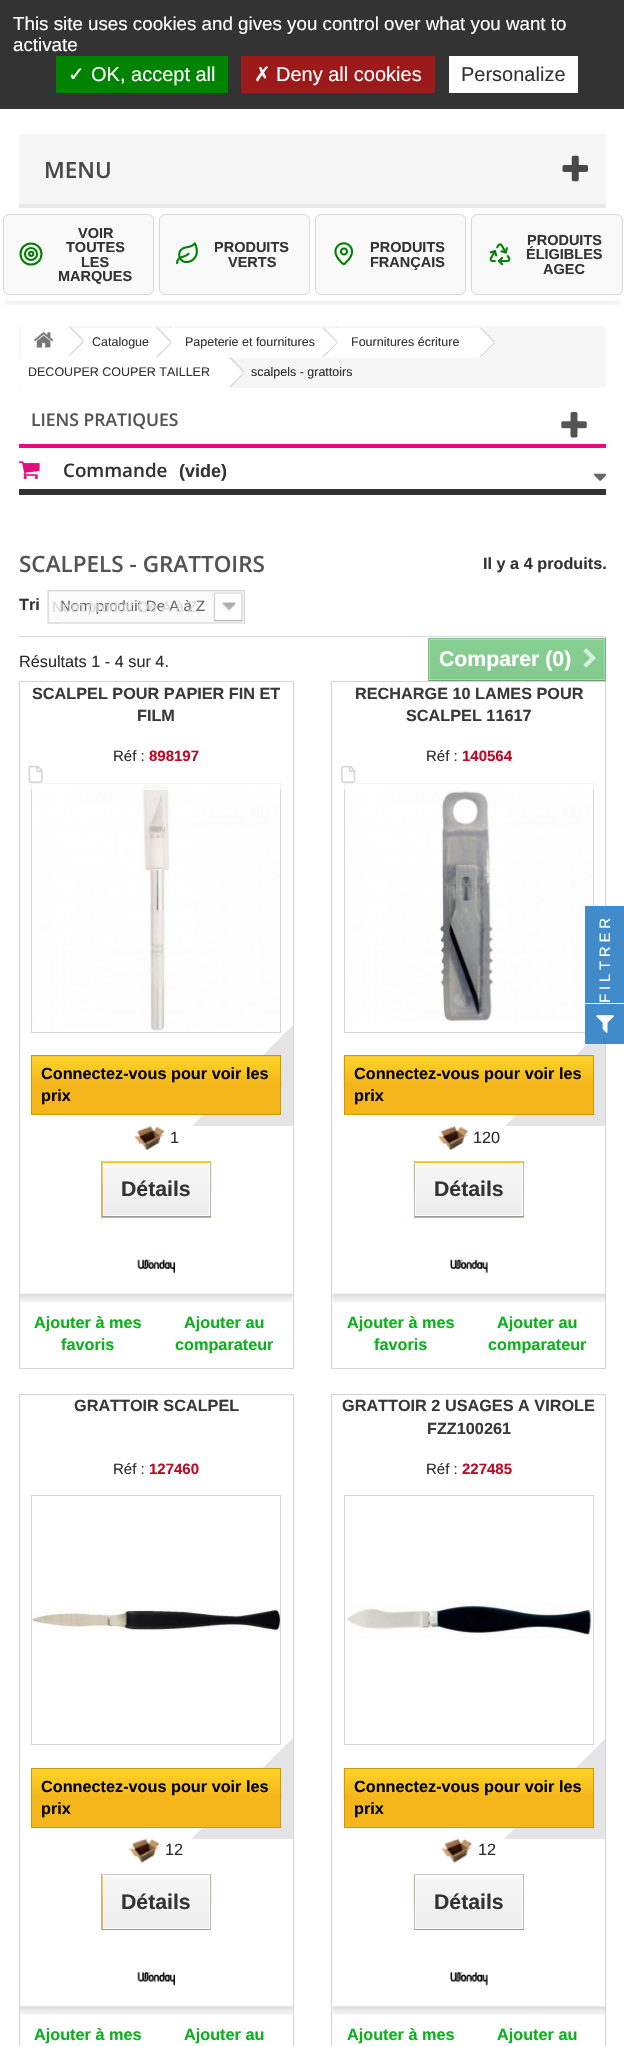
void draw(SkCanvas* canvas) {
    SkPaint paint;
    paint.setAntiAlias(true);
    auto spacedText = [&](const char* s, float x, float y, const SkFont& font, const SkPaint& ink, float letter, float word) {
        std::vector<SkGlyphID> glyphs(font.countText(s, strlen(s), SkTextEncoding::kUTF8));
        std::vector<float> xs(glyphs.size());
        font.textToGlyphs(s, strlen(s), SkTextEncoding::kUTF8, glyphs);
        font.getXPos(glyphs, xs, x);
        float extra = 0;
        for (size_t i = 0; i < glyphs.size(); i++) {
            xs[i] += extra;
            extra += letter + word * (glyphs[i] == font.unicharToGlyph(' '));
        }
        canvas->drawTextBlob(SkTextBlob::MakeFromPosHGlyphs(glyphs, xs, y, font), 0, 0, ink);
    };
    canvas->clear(0xFFFFFFFF);
    paint.setColor(0xFF333333);
    canvas->drawRect(SkRect::MakeXYWH(0, 0, 624, 109), paint);
    SkFont font1(fontMgr->matchFamilyStyle("Liberation Sans", SkFontStyle::Normal()), 18.75f);
    font1.setSubpixel(true);
    paint.setColor(0xFFFFFFFF);
    canvas->drawString("This site uses cookies and gives you control over what you want to", 13, 30, font1, paint);
    canvas->drawString("activate", 13, 51, font1, paint);
    paint.setColor(0xFF008300);
    canvas->drawRect(SkRect::MakeXYWH(56, 56, 172, 37), paint);
    SkFont font2(fontMgr->matchFamilyStyle("DejaVu Sans", SkFontStyle::Normal()), 20);
    font2.setSubpixel(true);
    paint.setColor(0xFFFFFFFF);
    canvas->drawString("✓", 68, 81, font2, paint);
    SkFont font3(fontMgr->matchFamilyStyle("Liberation Sans", SkFontStyle::Normal()), 20);
    font3.setSubpixel(true);
    canvas->drawString("OK, accept all", 91, 81, font3, paint);
    paint.setColor(0xFF9C1A1A);
    canvas->drawRect(SkRect::MakeXYWH(241, 56, 194, 37), paint);
    paint.setColor(0xFFFFFFFF);
    canvas->drawString("✗", 254, 81, font2, paint);
    canvas->drawString("Deny all cookies", 276, 81, font3, paint);
    canvas->drawRect(SkRect::MakeXYWH(449, 56, 129, 37), paint);
    paint.setColor(0xFF333333);
    canvas->drawString("Personalize", 461, 81, font3, paint);
    paint.setColor(0xFFF6F6F6);
    canvas->drawRect(SkRect::MakeXYWH(19, 134, 587, 70), paint);
    paint.setColor(0xFFE9E9E9);
    canvas->drawRect(SkRect::MakeXYWH(19, 204, 587, 4), paint);
    SkFont font4(fontMgr->matchFamilyStyle("Open Sans", SkFontStyle(600, SkFontStyle::kNormal_Width, SkFontStyle::kUpright_Slant)), 22.5f);
    font4.setSubpixel(true);
    paint.setColor(0xFF484848);
    canvas->drawString("MENU", 44, 178, font4, paint);
    canvas->drawImageRect(SkImages::DeferredFromEncodedData(SkData::MakeFromFileName("img1.png")), SkRect::MakeXYWH(562, 155, 27, 27), SkSamplingOptions());
    canvas->save();
    canvas->clipRect(SkRect::MakeXYWH(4, 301, 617, 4));
    paint.setColor(0x26000000);
    paint.setMaskFilter(SkMaskFilter::MakeBlur(kNormal_SkBlurStyle, 4));
    canvas->drawRect(SkRect::MakeXYWH(5, 224, 615, 77), paint);
    paint.setMaskFilter(nullptr);
    canvas->restore();
    paint.setColor(0xFFF9F9F9);
    canvas->drawRoundRect(SkRect::MakeXYWH(3.5f, 214.5f, 150, 80), 5.5f, 5.5f, paint);
    paint.setStyle(SkPaint::kStroke_Style);
    paint.setStrokeWidth(1);
    paint.setColor(0xFFD9D9D9);
    canvas->drawRoundRect(SkRect::MakeXYWH(3.5f, 214.5f, 150, 80), 5.5f, 5.5f, paint);
    paint.setStrokeWidth(2.1f);
    paint.setColor(0xFF008000);
    canvas->drawCircle(31, 254, 10.5f, paint);
    canvas->drawCircle(31, 254, 6, paint);
    canvas->drawCircle(31.2f, 253.8f, 2.1f, paint);
    SkFont font5(fontMgr->matchFamilyStyle("Liberation Sans", SkFontStyle::Bold()), 14.5f);
    font5.setSubpixel(true);
    paint.setStyle(SkPaint::kFill_Style);
    paint.setColor(0xFF333333);
    canvas->drawString("VOIR", 78, 238, font5, paint);
    canvas->drawString("TOUTES", 66, 252, font5, paint);
    canvas->drawString("LES", 81, 267, font5, paint);
    canvas->drawString("MARQUES", 58, 281, font5, paint);
    paint.setColor(0xFFF9F9F9);
    canvas->drawRoundRect(SkRect::MakeXYWH(159.5f, 214.5f, 150, 80), 5.5f, 5.5f, paint);
    paint.setStyle(SkPaint::kStroke_Style);
    paint.setStrokeWidth(1);
    paint.setColor(0xFFD9D9D9);
    canvas->drawRoundRect(SkRect::MakeXYWH(159.5f, 214.5f, 150, 80), 5.5f, 5.5f, paint);
    canvas->drawImageRect(SkImages::DeferredFromEncodedData(SkData::MakeFromFileName("img2.png")), SkRect::MakeXYWH(176, 242, 22, 23), SkSamplingOptions());
    paint.setStyle(SkPaint::kFill_Style);
    paint.setColor(0xFF333333);
    canvas->drawString("PRODUITS", 214, 252, font5, paint);
    canvas->drawString("VERTS", 228, 267, font5, paint);
    paint.setColor(0xFFF9F9F9);
    canvas->drawRoundRect(SkRect::MakeXYWH(315.5f, 214.5f, 150, 80), 5.5f, 5.5f, paint);
    paint.setStyle(SkPaint::kStroke_Style);
    paint.setColor(0xFFD9D9D9);
    canvas->drawRoundRect(SkRect::MakeXYWH(315.5f, 214.5f, 150, 80), 5.5f, 5.5f, paint);
    canvas->drawImageRect(SkImages::DeferredFromEncodedData(SkData::MakeFromFileName("img3.png")), SkRect::MakeXYWH(334, 242, 20, 24), SkSamplingOptions());
    paint.setStyle(SkPaint::kFill_Style);
    paint.setColor(0xFF333333);
    canvas->drawString("PRODUITS", 370, 252, font5, paint);
    canvas->drawString("FRANÇAIS", 370, 267, font5, paint);
    paint.setColor(0xFFF9F9F9);
    canvas->drawRoundRect(SkRect::MakeXYWH(471.5f, 214.5f, 151, 80), 5.5f, 5.5f, paint);
    paint.setStyle(SkPaint::kStroke_Style);
    paint.setColor(0xFFD9D9D9);
    canvas->drawRoundRect(SkRect::MakeXYWH(471.5f, 214.5f, 151, 80), 5.5f, 5.5f, paint);
    canvas->drawImageRect(SkImages::DeferredFromEncodedData(SkData::MakeFromFileName("img4.png")), SkRect::MakeXYWH(489, 243, 22, 23), SkSamplingOptions());
    paint.setStyle(SkPaint::kFill_Style);
    paint.setColor(0xFF333333);
    canvas->drawString("PRODUITS", 527, 245, font5, paint);
    canvas->drawString("ÉLIGIBLES", 526, 259, font5, paint);
    canvas->drawString("AGEC", 543, 274, font5, paint);
    paint.setColor(0xFFF6F6F6);
    canvas->drawRoundRect(SkRect::MakeXYWH(19, 326, 587, 62), 4, 4, paint);
    paint.setColor(0xFFFFFFFF);
    canvas->drawPath(SkPathBuilder().moveTo(24, 326).lineTo(68, 326).lineTo(68, 358).lineTo(24, 358).cubicTo(22, 358, 20, 356, 20, 354).lineTo(20, 330).cubicTo(20, 328, 22, 326, 24, 326).close().detach(), paint);
    canvas->drawRect(SkRect::MakeXYWH(68, 328, 90, 30), paint);
    canvas->drawPath(SkPathBuilder().moveTo(70.5f, 327).lineTo(83, 339).cubicTo(84, 340, 84, 342, 83, 343).lineTo(70.5f, 355).cubicTo(69.5f, 356, 68, 356, 67, 355).lineTo(54.5f, 343).cubicTo(53.5f, 342, 53.5f, 340, 54.5f, 339).lineTo(67, 327).cubicTo(68, 326, 69.5f, 326, 70.5f, 327).close().detach(), paint);
    canvas->drawImageRect(SkImages::DeferredFromEncodedData(SkData::MakeFromFileName("img5.png")), SkRect::MakeXYWH(34, 332, 20, 16), SkSamplingOptions());
    paint.setColor(0xFFD6D4D4);
    canvas->drawPath(SkPathBuilder().moveTo(69.5f, 326).lineTo(84, 340).lineTo(83, 341).lineTo(69, 327).close().moveTo(83, 341).lineTo(84, 342).lineTo(69.5f, 356).lineTo(69, 355).close().detach(), paint);
    SkFont font6(fontMgr->matchFamilyStyle("Liberation Sans", SkFontStyle::Normal()), 12.5f);
    font6.setSubpixel(true);
    paint.setColor(0xFF333333);
    canvas->drawString("Catalogue", 92, 346, font6, paint);
    paint.setColor(0xFFFFFFFF);
    canvas->drawPath(SkPathBuilder().moveTo(170.5f, 328).lineTo(183, 340.5f).cubicTo(184, 341.5f, 184, 343, 183, 344).lineTo(170.5f, 356.5f).cubicTo(169.5f, 357.5f, 168, 357.5f, 167, 356.5f).lineTo(155, 344).cubicTo(154, 343, 154, 341.5f, 155, 340.5f).lineTo(167, 328).cubicTo(168, 327, 169.5f, 327, 170.5f, 328).close().detach(), paint);
    paint.setColor(0xFFD6D4D4);
    canvas->drawPath(SkPathBuilder().moveTo(170, 327).lineTo(184, 341.5f).lineTo(183, 342.5f).lineTo(169, 328).close().detach(), paint);
    paint.setColor(0xFFFFFFFF);
    canvas->drawRect(SkRect::MakeXYWH(158, 328, 166, 30), paint);
    paint.setColor(0xFFD6D4D4);
    canvas->drawPath(SkPathBuilder().moveTo(157.5f, 327).lineTo(171.5f, 341.5f).lineTo(170.5f, 342.5f).lineTo(156.5f, 328).close().detach(), paint);
    canvas->drawPath(SkPathBuilder().moveTo(170.5f, 342.5f).lineTo(171.5f, 343).lineTo(157.5f, 357.5f).lineTo(156.5f, 356.5f).close().detach(), paint);
    paint.setColor(0xFF333333);
    canvas->drawString("Papeterie et fournitures", 185, 346, font6, paint);
    paint.setColor(0xFFFFFFFF);
    canvas->drawPath(SkPathBuilder().moveTo(337, 328).lineTo(349.5f, 340.5f).cubicTo(350.5f, 341.5f, 350.5f, 343, 349.5f, 344).lineTo(337, 356.5f).cubicTo(336, 357.5f, 334.5f, 357.5f, 333.5f, 356.5f).lineTo(321, 344).cubicTo(320, 343, 320, 341.5f, 321, 340.5f).lineTo(333.5f, 328).cubicTo(334.5f, 327, 336, 327, 337, 328).close().detach(), paint);
    paint.setColor(0xFFD6D4D4);
    canvas->drawPath(SkPathBuilder().moveTo(336, 327).lineTo(350, 341.5f).lineTo(349.5f, 342.5f).lineTo(335, 328).close().detach(), paint);
    paint.setColor(0xFFFFFFFF);
    canvas->drawRect(SkRect::MakeXYWH(324, 328, 155, 30), paint);
    paint.setColor(0xFFD6D4D4);
    canvas->drawPath(SkPathBuilder().moveTo(323.5f, 327).lineTo(337.5f, 341.5f).lineTo(337, 342.5f).lineTo(322.5f, 328).close().detach(), paint);
    canvas->drawPath(SkPathBuilder().moveTo(337, 342.5f).lineTo(337.5f, 343).lineTo(323.5f, 357.5f).lineTo(322.5f, 356.5f).close().detach(), paint);
    paint.setColor(0xFF333333);
    canvas->drawString("Fournitures écriture", 351, 346, font6, paint);
    paint.setColor(0xFFFFFFFF);
    canvas->drawPath(SkPathBuilder().moveTo(481.5f, 328).lineTo(494, 340.5f).cubicTo(495, 341.5f, 495, 343, 494, 344).lineTo(481.5f, 356.5f).cubicTo(480.5f, 357.5f, 479, 357.5f, 478, 356.5f).lineTo(465.5f, 344).cubicTo(464.5f, 343, 464.5f, 341.5f, 465.5f, 340.5f).lineTo(478, 328).cubicTo(479, 327, 480.5f, 327, 481.5f, 328).close().detach(), paint);
    paint.setColor(0xFFD6D4D4);
    canvas->drawPath(SkPathBuilder().moveTo(480.5f, 327).lineTo(495, 341.5f).lineTo(494, 342.5f).lineTo(480, 328).close().detach(), paint);
    canvas->drawPath(SkPathBuilder().moveTo(494, 342.5f).lineTo(495, 343).lineTo(480.5f, 357.5f).lineTo(480, 356.5f).close().detach(), paint);
    paint.setColor(0xFFFFFFFF);
    canvas->drawPath(SkPathBuilder().moveTo(19, 358).lineTo(229, 358).lineTo(229, 388).lineTo(23, 388).cubicTo(21, 388, 19, 386, 19, 384).close().detach(), paint);
    paint.setColor(0xFF333333);
    canvas->drawString("DECOUPER COUPER TAILLER", 28, 376, font6, paint);
    paint.setColor(0xFFFFFFFF);
    canvas->drawPath(SkPathBuilder().moveTo(231.5f, 358).lineTo(243.5f, 370.5f).cubicTo(244.5f, 371.5f, 244.5f, 373, 243.5f, 374).lineTo(231.5f, 386.5f).cubicTo(230.5f, 387.5f, 228.5f, 387.5f, 227.5f, 386.5f).lineTo(215.5f, 374).cubicTo(214.5f, 373, 214.5f, 371.5f, 215.5f, 370.5f).lineTo(227.5f, 358).cubicTo(228.5f, 357, 230.5f, 357, 231.5f, 358).close().detach(), paint);
    paint.setColor(0xFFD6D4D4);
    canvas->drawPath(SkPathBuilder().moveTo(230.5f, 357).lineTo(244.5f, 371.5f).lineTo(243.5f, 372.5f).lineTo(229.5f, 358).close().detach(), paint);
    canvas->drawPath(SkPathBuilder().moveTo(243.5f, 372.5f).lineTo(244.5f, 373).lineTo(230.5f, 387.5f).lineTo(229.5f, 386.5f).close().detach(), paint);
    paint.setColor(0xFF2D2D2D);
    canvas->drawString("scalpels - grattoirs", 251, 376, font6, paint);
    paint.setColor(0xFFE50C7E);
    canvas->drawRect(SkRect::MakeXYWH(19, 444, 587, 4), paint);
    SkFont font7(fontMgr->matchFamilyStyle("Open Sans", SkFontStyle(600, SkFontStyle::kNormal_Width, SkFontStyle::kUpright_Slant)), 17.5f);
    font7.setSubpixel(true);
    paint.setColor(0xFF555454);
    canvas->drawString("LIENS PRATIQUES", 31, 426, font7, paint);
    canvas->drawImageRect(SkImages::DeferredFromEncodedData(SkData::MakeFromFileName("img6.png")), SkRect::MakeXYWH(561, 411, 26, 27), SkSamplingOptions());
    canvas->drawImageRect(SkImages::DeferredFromEncodedData(SkData::MakeFromFileName("img7.png")), SkRect::MakeXYWH(19, 461, 21, 19), SkSamplingOptions());
    SkFont font8(fontMgr->matchFamilyStyle("Open Sans", SkFontStyle(600, SkFontStyle::kNormal_Width, SkFontStyle::kUpright_Slant)), 18.75f);
    font8.setSubpixel(true);
    paint.setColor(0xFF333333);
    canvas->drawString("Commande", 63, 477, font8, paint);
    SkFont font9(fontMgr->matchFamilyStyle("Liberation Sans", SkFontStyle::Bold()), 18);
    font9.setSubpixel(true);
    canvas->drawString("(vide)", 179, 477, font9, paint);
    canvas->drawImageRect(SkImages::DeferredFromEncodedData(SkData::MakeFromFileName("img8.png")), SkRect::MakeXYWH(593, 473, 13, 8), SkSamplingOptions());
    canvas->drawRect(SkRect::MakeXYWH(19, 489, 587, 6), paint);
    paint.setColor(0xFF555454);
    canvas->drawString("SCALPELS - GRATTOIRS", 19, 572, font4, paint);
    SkFont font10(fontMgr->matchFamilyStyle("Liberation Sans", SkFontStyle::Bold()), 16.25f);
    font10.setSubpixel(true);
    paint.setColor(0xFF333333);
    canvas->drawString("Il y a 4 produits.", 483, 569, font10, paint);
    paint.setColor(0xFFD6D4D4);
    canvas->drawRect(SkRect::MakeXYWH(19, 636, 587, 1), paint);
    paint.setColor(0xFF333333);
    canvas->drawString("Tri", 19, 610, font10, paint);
    canvas->drawImageRect(SkImages::DeferredFromEncodedData(SkData::MakeFromFileName("img9.png")), SkRect::MakeXYWH(47, 590, 14, 34), SkSamplingOptions());
    canvas->drawImageRect(SkImages::DeferredFromEncodedData(SkData::MakeFromFileName("img10.png")), SkRect::MakeXYWH(60, 590, 185, 34), SkSamplingOptions());
    SkFont font11(fontMgr->matchFamilyStyle("Liberation Sans", SkFontStyle::Normal()), 15);
    font11.setSubpixel(true);
    paint.setColor(0xFF666666);
    canvas->drawString("Nom produit De A à Z", 60, 611, font11, paint);
    paint.setColor(0xFFD8D8D8);
    canvas->drawString("Nom produit De A à Z", 52, 612, font11, paint);
    SkFont font12(fontMgr->matchFamilyStyle("Liberation Sans", SkFontStyle::Normal()), 16.25f);
    font12.setSubpixel(true);
    paint.setColor(0xFF2D2D2D);
    canvas->drawString("Résultats 1 - 4 sur 4.", 19, 667, font12, paint);
    {
        const SkColor colors[] = {0xFF85D090, 0xFF84C98F};
        const float stops[] = {0, 1};
        const SkPoint ends[] = {{517, 639}, {517, 680}};
        paint.setShader(SkGradientShader::MakeLinear(ends, colors, stops, 2, SkTileMode::kClamp));
        paint.setAlpha(255);
    }
    canvas->drawRect(SkRect::MakeXYWH(430, 640, 174, 39), paint);
    paint.setShader(nullptr);
    paint.setColor(0xFF7EBD89);
    canvas->drawRect(SkRect::MakeXYWH(428, 638, 178, 1), paint);
    paint.setColor(0xFF71AC7A);
    canvas->drawRect(SkRect::MakeXYWH(605, 638, 1, 43), paint);
    paint.setColor(0xFF6AA073);
    canvas->drawRect(SkRect::MakeXYWH(428, 680, 178, 1), paint);
    paint.setColor(0xFF7EBD89);
    canvas->drawRect(SkRect::MakeXYWH(428, 638, 1, 43), paint);
    paint.setStyle(SkPaint::kStroke_Style);
    paint.setColor(0xFFA5E4A7);
    canvas->drawRect(SkRect::MakeXYWH(429.5f, 639.5f, 175, 40), paint);
    SkFont font13(fontMgr->matchFamilyStyle("Liberation Sans", SkFontStyle::Bold()), 21.25f);
    font13.setSubpixel(true);
    paint.setStyle(SkPaint::kFill_Style);
    paint.setColor(0xFFFFFFFF);
    canvas->drawString("Comparer (0)", 439, 666, font13, paint);
    canvas->drawImageRect(SkImages::DeferredFromEncodedData(SkData::MakeFromFileName("img11.png")), SkRect::MakeXYWH(583, 648, 13, 20), SkSamplingOptions());
    paint.setStyle(SkPaint::kStroke_Style);
    paint.setColor(0xFFD6D4D4);
    canvas->drawRect(SkRect::MakeXYWH(19.5f, 681.5f, 274, 687), paint);
    paint.setStyle(SkPaint::kFill_Style);
    paint.setColor(0xFF3A3939);
    canvas->drawString("SCALPEL POUR PAPIER FIN ET", 32, 699, font10, paint);
    canvas->drawString("FILM", 137, 721, font10, paint);
    paint.setColor(0xFF2D2D2D);
    canvas->drawString("Réf :", 113, 761, font11, paint);
    SkFont font14(fontMgr->matchFamilyStyle("Liberation Sans", SkFontStyle::Bold()), 15);
    font14.setSubpixel(true);
    paint.setColor(0xFFBE0926);
    canvas->drawString("898197", 149, 761, font14, paint);
    paint.setStyle(SkPaint::kStroke_Style);
    paint.setColor(0xFFD6D4D4);
    canvas->drawRect(SkRect::MakeXYWH(31.5f, 783.5f, 249, 249), paint);
    canvas->drawImageRect(SkImages::DeferredFromEncodedData(SkData::MakeFromFileName("img13.png")), SkRect::MakeXYWH(32, 783, 248, 248), SkSamplingOptions());
    paint.setStyle(SkPaint::kFill_Style);
    paint.setColor(0xB3FFFFFF);
    canvas->drawRect(SkRect::MakeXYWH(31, 783, 250, 7), paint);
    canvas->drawImageRect(SkImages::DeferredFromEncodedData(SkData::MakeFromFileName("img12.png")), SkRect::MakeXYWH(28, 765, 15, 18), SkSamplingOptions());
    canvas->save();
    canvas->clipRect(SkRect::MakeXYWH(24, 933, 269, 193));
    paint.setColor(0xFFE4E4E6);
    canvas->drawPath(SkPathBuilder().moveTo(299, 1019).lineTo(374, 1094).lineTo(259, 1209).lineTo(184, 1134).close().detach(), paint);
    canvas->restore();
    paint.setColor(0xFFF4B61B);
    canvas->drawRect(SkRect::MakeXYWH(32, 1056, 248, 58), paint);
    canvas->drawImageRect(SkImages::DeferredFromEncodedData(SkData::MakeFromFileName("img14.png")), SkRect::MakeXYWH(32, 1056, 250, 31), SkSamplingOptions());
    paint.setStyle(SkPaint::kStroke_Style);
    paint.setColor(0xFFCC9900);
    canvas->drawRect(SkRect::MakeXYWH(31.5f, 1055.5f, 249, 59), paint);
    paint.setStyle(SkPaint::kFill_Style);
    paint.setColor(0xFF000000);
    canvas->drawString("Connectez-vous pour voir les", 41, 1079, font10, paint);
    canvas->drawString("prix", 41, 1101, font10, paint);
    canvas->drawImageRect(SkImages::DeferredFromEncodedData(SkData::MakeFromFileName("img15.png")), SkRect::MakeXYWH(133, 1126, 32, 24), SkSamplingOptions());
    paint.setColor(0xFF2D2D2D);
    canvas->drawString("1", 170, 1143, font12, paint);
    paint.setColor(0xFFF4B61B);
    canvas->drawRect(SkRect::MakeXYWH(102, 1162, 108, 56), paint);
    canvas->drawImageRect(SkImages::DeferredFromEncodedData(SkData::MakeFromFileName("img16.png")), SkRect::MakeXYWH(102, 1162, 110, 31), SkSamplingOptions());
    paint.setColor(0xFFCACACA);
    canvas->drawRect(SkRect::MakeXYWH(101, 1161, 110, 1), paint);
    paint.setColor(0xFFB7B7B7);
    canvas->drawRect(SkRect::MakeXYWH(210, 1161, 1, 57), paint);
    paint.setColor(0xFF9A9A9A);
    canvas->drawRect(SkRect::MakeXYWH(101, 1216, 110, 1), paint);
    paint.setColor(0xFFB7B7B7);
    canvas->drawRect(SkRect::MakeXYWH(101, 1161, 1, 57), paint);
    {
        const SkColor colors[] = {0xFFF7F7F7, 0xFFEDEDED};
        const float stops[] = {0, 1};
        const SkPoint ends[] = {{156, 1164}, {156, 1215}};
        paint.setShader(SkGradientShader::MakeLinear(ends, colors, stops, 2, SkTileMode::kClamp));
        paint.setAlpha(255);
    }
    canvas->drawRect(SkRect::MakeXYWH(104, 1164, 105, 51), paint);
    paint.setStyle(SkPaint::kStroke_Style);
    paint.setShader(nullptr);
    paint.setColor(0xFFFFFFFF);
    canvas->drawRect(SkRect::MakeXYWH(103.5f, 1163.5f, 106, 52), paint);
    paint.setStyle(SkPaint::kFill_Style);
    paint.setColor(0xFF333333);
    canvas->drawString("Détails", 121, 1196, font13, paint);
    canvas->drawImageRect(SkImages::DeferredFromEncodedData(SkData::MakeFromFileName("img17.png")), SkRect::MakeXYWH(137, 1255, 38, 20), SkSamplingOptions());
    canvas->drawImageRect(SkImages::DeferredFromEncodedData(SkData::MakeFromFileName("img18.png")), SkRect::MakeXYWH(20, 1293, 273, 10), SkSamplingOptions());
    paint.setColor(0xFF0CB01C);
    canvas->drawString("Ajouter à mes", 34, 1328, font10, paint);
    canvas->drawString("favoris", 61, 1350, font10, paint);
    canvas->drawString("Ajouter au", 184, 1328, font10, paint);
    canvas->drawString("comparateur", 175, 1350, font10, paint);
    paint.setStyle(SkPaint::kStroke_Style);
    paint.setColor(0xFFD6D4D4);
    canvas->drawRect(SkRect::MakeXYWH(331.5f, 681.5f, 274, 687), paint);
    paint.setStyle(SkPaint::kFill_Style);
    paint.setColor(0xFF3A3939);
    canvas->drawString("RECHARGE 10 LAMES POUR", 355, 699, font10, paint);
    canvas->drawString("SCALPEL 11617", 406, 721, font10, paint);
    paint.setColor(0xFF2D2D2D);
    canvas->drawString("Réf :", 426, 761, font11, paint);
    paint.setColor(0xFFBE0926);
    canvas->drawString("140564", 462, 761, font14, paint);
    paint.setStyle(SkPaint::kStroke_Style);
    paint.setColor(0xFFD6D4D4);
    canvas->drawRect(SkRect::MakeXYWH(344.5f, 783.5f, 249, 249), paint);
    canvas->drawImageRect(SkImages::DeferredFromEncodedData(SkData::MakeFromFileName("img20.png")), SkRect::MakeXYWH(345, 783, 248, 239), SkSamplingOptions());
    paint.setStyle(SkPaint::kFill_Style);
    paint.setColor(0xB3FFFFFF);
    canvas->drawRect(SkRect::MakeXYWH(344, 783, 250, 7), paint);
    canvas->drawImageRect(SkImages::DeferredFromEncodedData(SkData::MakeFromFileName("img19.png")), SkRect::MakeXYWH(341, 765, 15, 18), SkSamplingOptions());
    canvas->save();
    canvas->clipRect(SkRect::MakeXYWH(336, 933, 269, 193));
    paint.setColor(0xFFE4E4E6);
    canvas->drawPath(SkPathBuilder().moveTo(612, 1019).lineTo(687, 1094).lineTo(572, 1209).lineTo(497, 1134).close().detach(), paint);
    canvas->restore();
    paint.setColor(0xFFF4B61B);
    canvas->drawRect(SkRect::MakeXYWH(345, 1056, 248, 58), paint);
    canvas->drawImageRect(SkImages::DeferredFromEncodedData(SkData::MakeFromFileName("img21.png")), SkRect::MakeXYWH(343, 1056, 250, 31), SkSamplingOptions());
    paint.setStyle(SkPaint::kStroke_Style);
    paint.setColor(0xFFCC9900);
    canvas->drawRect(SkRect::MakeXYWH(344.5f, 1055.5f, 249, 59), paint);
    paint.setStyle(SkPaint::kFill_Style);
    paint.setColor(0xFF000000);
    canvas->drawString("Connectez-vous pour voir les", 354, 1079, font10, paint);
    canvas->drawString("prix", 354, 1101, font10, paint);
    canvas->drawImageRect(SkImages::DeferredFromEncodedData(SkData::MakeFromFileName("img22.png")), SkRect::MakeXYWH(437, 1126, 32, 24), SkSamplingOptions());
    paint.setColor(0xFF2D2D2D);
    canvas->drawString("120", 473, 1143, font12, paint);
    paint.setColor(0xFFF4B61B);
    canvas->drawRect(SkRect::MakeXYWH(415, 1162, 108, 56), paint);
    canvas->drawImageRect(SkImages::DeferredFromEncodedData(SkData::MakeFromFileName("img23.png")), SkRect::MakeXYWH(413, 1162, 110, 31), SkSamplingOptions());
    paint.setColor(0xFFCACACA);
    canvas->drawRect(SkRect::MakeXYWH(414, 1161, 110, 1), paint);
    paint.setColor(0xFFB7B7B7);
    canvas->drawRect(SkRect::MakeXYWH(523, 1161, 1, 57), paint);
    paint.setColor(0xFF9A9A9A);
    canvas->drawRect(SkRect::MakeXYWH(414, 1216, 110, 1), paint);
    paint.setColor(0xFFB7B7B7);
    canvas->drawRect(SkRect::MakeXYWH(414, 1161, 1, 57), paint);
    {
        const SkColor colors[] = {0xFFF7F7F7, 0xFFEDEDED};
        const float stops[] = {0, 1};
        const SkPoint ends[] = {{469, 1164}, {469, 1215}};
        paint.setShader(SkGradientShader::MakeLinear(ends, colors, stops, 2, SkTileMode::kClamp));
        paint.setAlpha(255);
    }
    canvas->drawRect(SkRect::MakeXYWH(416, 1164, 106, 51), paint);
    paint.setStyle(SkPaint::kStroke_Style);
    paint.setShader(nullptr);
    paint.setColor(0xFFFFFFFF);
    canvas->drawRect(SkRect::MakeXYWH(415.5f, 1163.5f, 107, 52), paint);
    paint.setStyle(SkPaint::kFill_Style);
    paint.setColor(0xFF333333);
    canvas->drawString("Détails", 434, 1196, font13, paint);
    canvas->drawImageRect(SkImages::DeferredFromEncodedData(SkData::MakeFromFileName("img24.png")), SkRect::MakeXYWH(450, 1255, 38, 20), SkSamplingOptions());
    canvas->drawImageRect(SkImages::DeferredFromEncodedData(SkData::MakeFromFileName("img25.png")), SkRect::MakeXYWH(332, 1293, 273, 10), SkSamplingOptions());
    paint.setColor(0xFF0CB01C);
    canvas->drawString("Ajouter à mes", 347, 1328, font10, paint);
    canvas->drawString("favoris", 374, 1350, font10, paint);
    canvas->drawString("Ajouter au", 497, 1328, font10, paint);
    canvas->drawString("comparateur", 488, 1350, font10, paint);
    paint.setStyle(SkPaint::kStroke_Style);
    paint.setColor(0xFFD6D4D4);
    canvas->drawRect(SkRect::MakeXYWH(19.5f, 1394.5f, 274, 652), paint);
    paint.setStyle(SkPaint::kFill_Style);
    paint.setColor(0xFF3A3939);
    canvas->drawString("GRATTOIR SCALPEL", 74, 1411, font10, paint);
    paint.setColor(0xFF2D2D2D);
    canvas->drawString("Réf :", 113, 1474, font11, paint);
    paint.setColor(0xFFBE0926);
    canvas->drawString("127460", 149, 1474, font14, paint);
    paint.setStyle(SkPaint::kStroke_Style);
    paint.setColor(0xFFD6D4D4);
    canvas->drawRect(SkRect::MakeXYWH(31.5f, 1495.5f, 249, 249), paint);
    canvas->drawImageRect(SkImages::DeferredFromEncodedData(SkData::MakeFromFileName("img26.png")), SkRect::MakeXYWH(32, 1607, 248, 24), SkSamplingOptions());
    canvas->save();
    canvas->clipRect(SkRect::MakeXYWH(24, 1645, 269, 194));
    paint.setStyle(SkPaint::kFill_Style);
    paint.setColor(0xFFE4E4E6);
    canvas->drawPath(SkPathBuilder().moveTo(299, 1732).lineTo(374, 1807).lineTo(259, 1922).lineTo(184, 1846).close().detach(), paint);
    canvas->restore();
    paint.setColor(0xFFF4B61B);
    canvas->drawRect(SkRect::MakeXYWH(32, 1798, 248, 29), paint);
    canvas->drawImageRect(SkImages::DeferredFromEncodedData(SkData::MakeFromFileName("img27.png")), SkRect::MakeXYWH(32, 1768, 250, 31), SkSamplingOptions());
    paint.setStyle(SkPaint::kStroke_Style);
    paint.setColor(0xFFCC9900);
    canvas->drawRect(SkRect::MakeXYWH(31.5f, 1768.5f, 249, 59), paint);
    paint.setStyle(SkPaint::kFill_Style);
    paint.setColor(0xFF000000);
    canvas->drawString("Connectez-vous pour voir les", 41, 1792, font10, paint);
    canvas->drawString("prix", 41, 1814, font10, paint);
    canvas->drawImageRect(SkImages::DeferredFromEncodedData(SkData::MakeFromFileName("img28.png")), SkRect::MakeXYWH(128, 1838, 32, 25), SkSamplingOptions());
    paint.setColor(0xFF2D2D2D);
    canvas->drawString("12", 165, 1855, font12, paint);
    paint.setColor(0xFFF4B61B);
    canvas->drawRect(SkRect::MakeXYWH(102, 1904, 1, 25), paint);
    canvas->drawImageRect(SkImages::DeferredFromEncodedData(SkData::MakeFromFileName("img29.png")), SkRect::MakeXYWH(102, 1875, 110, 31), SkSamplingOptions());
    paint.setColor(0xFFCACACA);
    canvas->drawRect(SkRect::MakeXYWH(101, 1874, 110, 1), paint);
    paint.setColor(0xFFB7B7B7);
    canvas->drawRect(SkRect::MakeXYWH(210, 1874, 1, 56), paint);
    paint.setColor(0xFF9A9A9A);
    canvas->drawRect(SkRect::MakeXYWH(101, 1929, 110, 1), paint);
    paint.setColor(0xFFB7B7B7);
    canvas->drawRect(SkRect::MakeXYWH(101, 1874, 1, 56), paint);
    {
        const SkColor colors[] = {0xFFF7F7F7, 0xFFEDEDED};
        const float stops[] = {0, 1};
        const SkPoint ends[] = {{156, 1876}, {156, 1928}};
        paint.setShader(SkGradientShader::MakeLinear(ends, colors, stops, 2, SkTileMode::kClamp));
        paint.setAlpha(255);
    }
    canvas->drawRect(SkRect::MakeXYWH(104, 1876, 105, 52), paint);
    paint.setStyle(SkPaint::kStroke_Style);
    paint.setShader(nullptr);
    paint.setColor(0xFFFFFFFF);
    canvas->drawRect(SkRect::MakeXYWH(103.5f, 1875.5f, 106, 53), paint);
    paint.setStyle(SkPaint::kFill_Style);
    paint.setColor(0xFF333333);
    canvas->drawString("Détails", 121, 1909, font13, paint);
    canvas->drawImageRect(SkImages::DeferredFromEncodedData(SkData::MakeFromFileName("img30.png")), SkRect::MakeXYWH(137, 1968, 38, 18), SkSamplingOptions());
    canvas->drawImageRect(SkImages::DeferredFromEncodedData(SkData::MakeFromFileName("img31.png")), SkRect::MakeXYWH(20, 2006, 273, 9), SkSamplingOptions());
    paint.setColor(0xFF0CB01C);
    canvas->drawString("Ajouter à mes", 34, 2040, font10, paint);
    canvas->drawString("Ajouter au", 184, 2040, font10, paint);
    paint.setStyle(SkPaint::kStroke_Style);
    paint.setColor(0xFFD6D4D4);
    canvas->drawRect(SkRect::MakeXYWH(331.5f, 1394.5f, 274, 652), paint);
    paint.setStyle(SkPaint::kFill_Style);
    paint.setColor(0xFF3A3939);
    canvas->drawString("GRATTOIR 2 USAGES A VIROLE", 342, 1411, font10, paint);
    canvas->drawString("FZZ100261", 427, 1434, font10, paint);
    paint.setColor(0xFF2D2D2D);
    canvas->drawString("Réf :", 426, 1474, font11, paint);
    paint.setColor(0xFFBE0926);
    canvas->drawString("227485", 462, 1474, font14, paint);
    paint.setStyle(SkPaint::kStroke_Style);
    paint.setColor(0xFFD6D4D4);
    canvas->drawRect(SkRect::MakeXYWH(344.5f, 1495.5f, 249, 249), paint);
    canvas->drawImageRect(SkImages::DeferredFromEncodedData(SkData::MakeFromFileName("img32.png")), SkRect::MakeXYWH(346, 1602, 247, 37), SkSamplingOptions());
    canvas->save();
    canvas->clipRect(SkRect::MakeXYWH(336, 1645, 269, 194));
    paint.setStyle(SkPaint::kFill_Style);
    paint.setColor(0xFFE4E4E6);
    canvas->drawPath(SkPathBuilder().moveTo(612, 1732).lineTo(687, 1807).lineTo(572, 1922).lineTo(497, 1846).close().detach(), paint);
    canvas->restore();
    paint.setColor(0xFFF4B61B);
    canvas->drawRect(SkRect::MakeXYWH(345, 1798, 248, 29), paint);
    canvas->drawImageRect(SkImages::DeferredFromEncodedData(SkData::MakeFromFileName("img33.png")), SkRect::MakeXYWH(343, 1768, 250, 31), SkSamplingOptions());
    paint.setStyle(SkPaint::kStroke_Style);
    paint.setColor(0xFFCC9900);
    canvas->drawRect(SkRect::MakeXYWH(344.5f, 1768.5f, 249, 59), paint);
    paint.setStyle(SkPaint::kFill_Style);
    paint.setColor(0xFF000000);
    canvas->drawString("Connectez-vous pour voir les", 354, 1792, font10, paint);
    canvas->drawString("prix", 354, 1814, font10, paint);
    canvas->drawImageRect(SkImages::DeferredFromEncodedData(SkData::MakeFromFileName("img34.png")), SkRect::MakeXYWH(441, 1838, 32, 25), SkSamplingOptions());
    paint.setColor(0xFF2D2D2D);
    canvas->drawString("12", 478, 1855, font12, paint);
    canvas->drawImageRect(SkImages::DeferredFromEncodedData(SkData::MakeFromFileName("img35.png")), SkRect::MakeXYWH(413, 1875, 1, 31), SkSamplingOptions());
    paint.setColor(0xFFCACACA);
    canvas->drawRect(SkRect::MakeXYWH(414, 1874, 110, 1), paint);
    paint.setColor(0xFFB7B7B7);
    canvas->drawRect(SkRect::MakeXYWH(523, 1874, 1, 56), paint);
    paint.setColor(0xFF9A9A9A);
    canvas->drawRect(SkRect::MakeXYWH(414, 1929, 110, 1), paint);
    paint.setColor(0xFFB7B7B7);
    canvas->drawRect(SkRect::MakeXYWH(414, 1874, 1, 56), paint);
    {
        const SkColor colors[] = {0xFFF7F7F7, 0xFFEDEDED};
        const float stops[] = {0, 1};
        const SkPoint ends[] = {{469, 1876}, {469, 1928}};
        paint.setShader(SkGradientShader::MakeLinear(ends, colors, stops, 2, SkTileMode::kClamp));
        paint.setAlpha(255);
    }
    canvas->drawRect(SkRect::MakeXYWH(416, 1876, 106, 52), paint);
    paint.setShader(nullptr);
    paint.setColor(0xFF333333);
    canvas->drawString("Détails", 434, 1909, font13, paint);
    canvas->drawImageRect(SkImages::DeferredFromEncodedData(SkData::MakeFromFileName("img36.png")), SkRect::MakeXYWH(450, 1968, 38, 19), SkSamplingOptions());
    canvas->drawImageRect(SkImages::DeferredFromEncodedData(SkData::MakeFromFileName("img37.png")), SkRect::MakeXYWH(332, 2006, 273, 9), SkSamplingOptions());
    paint.setColor(0xFF0CB01C);
    canvas->drawString("Ajouter à mes", 347, 2040, font10, paint);
    canvas->drawString("Ajouter au", 497, 2040, font10, paint);
    paint.setColor(0xFF428BCA);
    canvas->drawRect(SkRect::MakeXYWH(585, 1004, 39, 40), paint);
    canvas->drawRect(SkRect::MakeXYWH(585, 906, 39, 97), paint);
    paint.setColor(0xFFFFFFFF);
    canvas->save();
    canvas->rotate(-90, 610, 1003);
    spacedText("FILTRER", 610, 1003, font11, paint, 3.75f, 0);
    canvas->restore();
    canvas->drawImageRect(SkImages::DeferredFromEncodedData(SkData::MakeFromFileName("img38.png")), SkRect::MakeXYWH(596, 1015, 18, 18), SkSamplingOptions());
}
